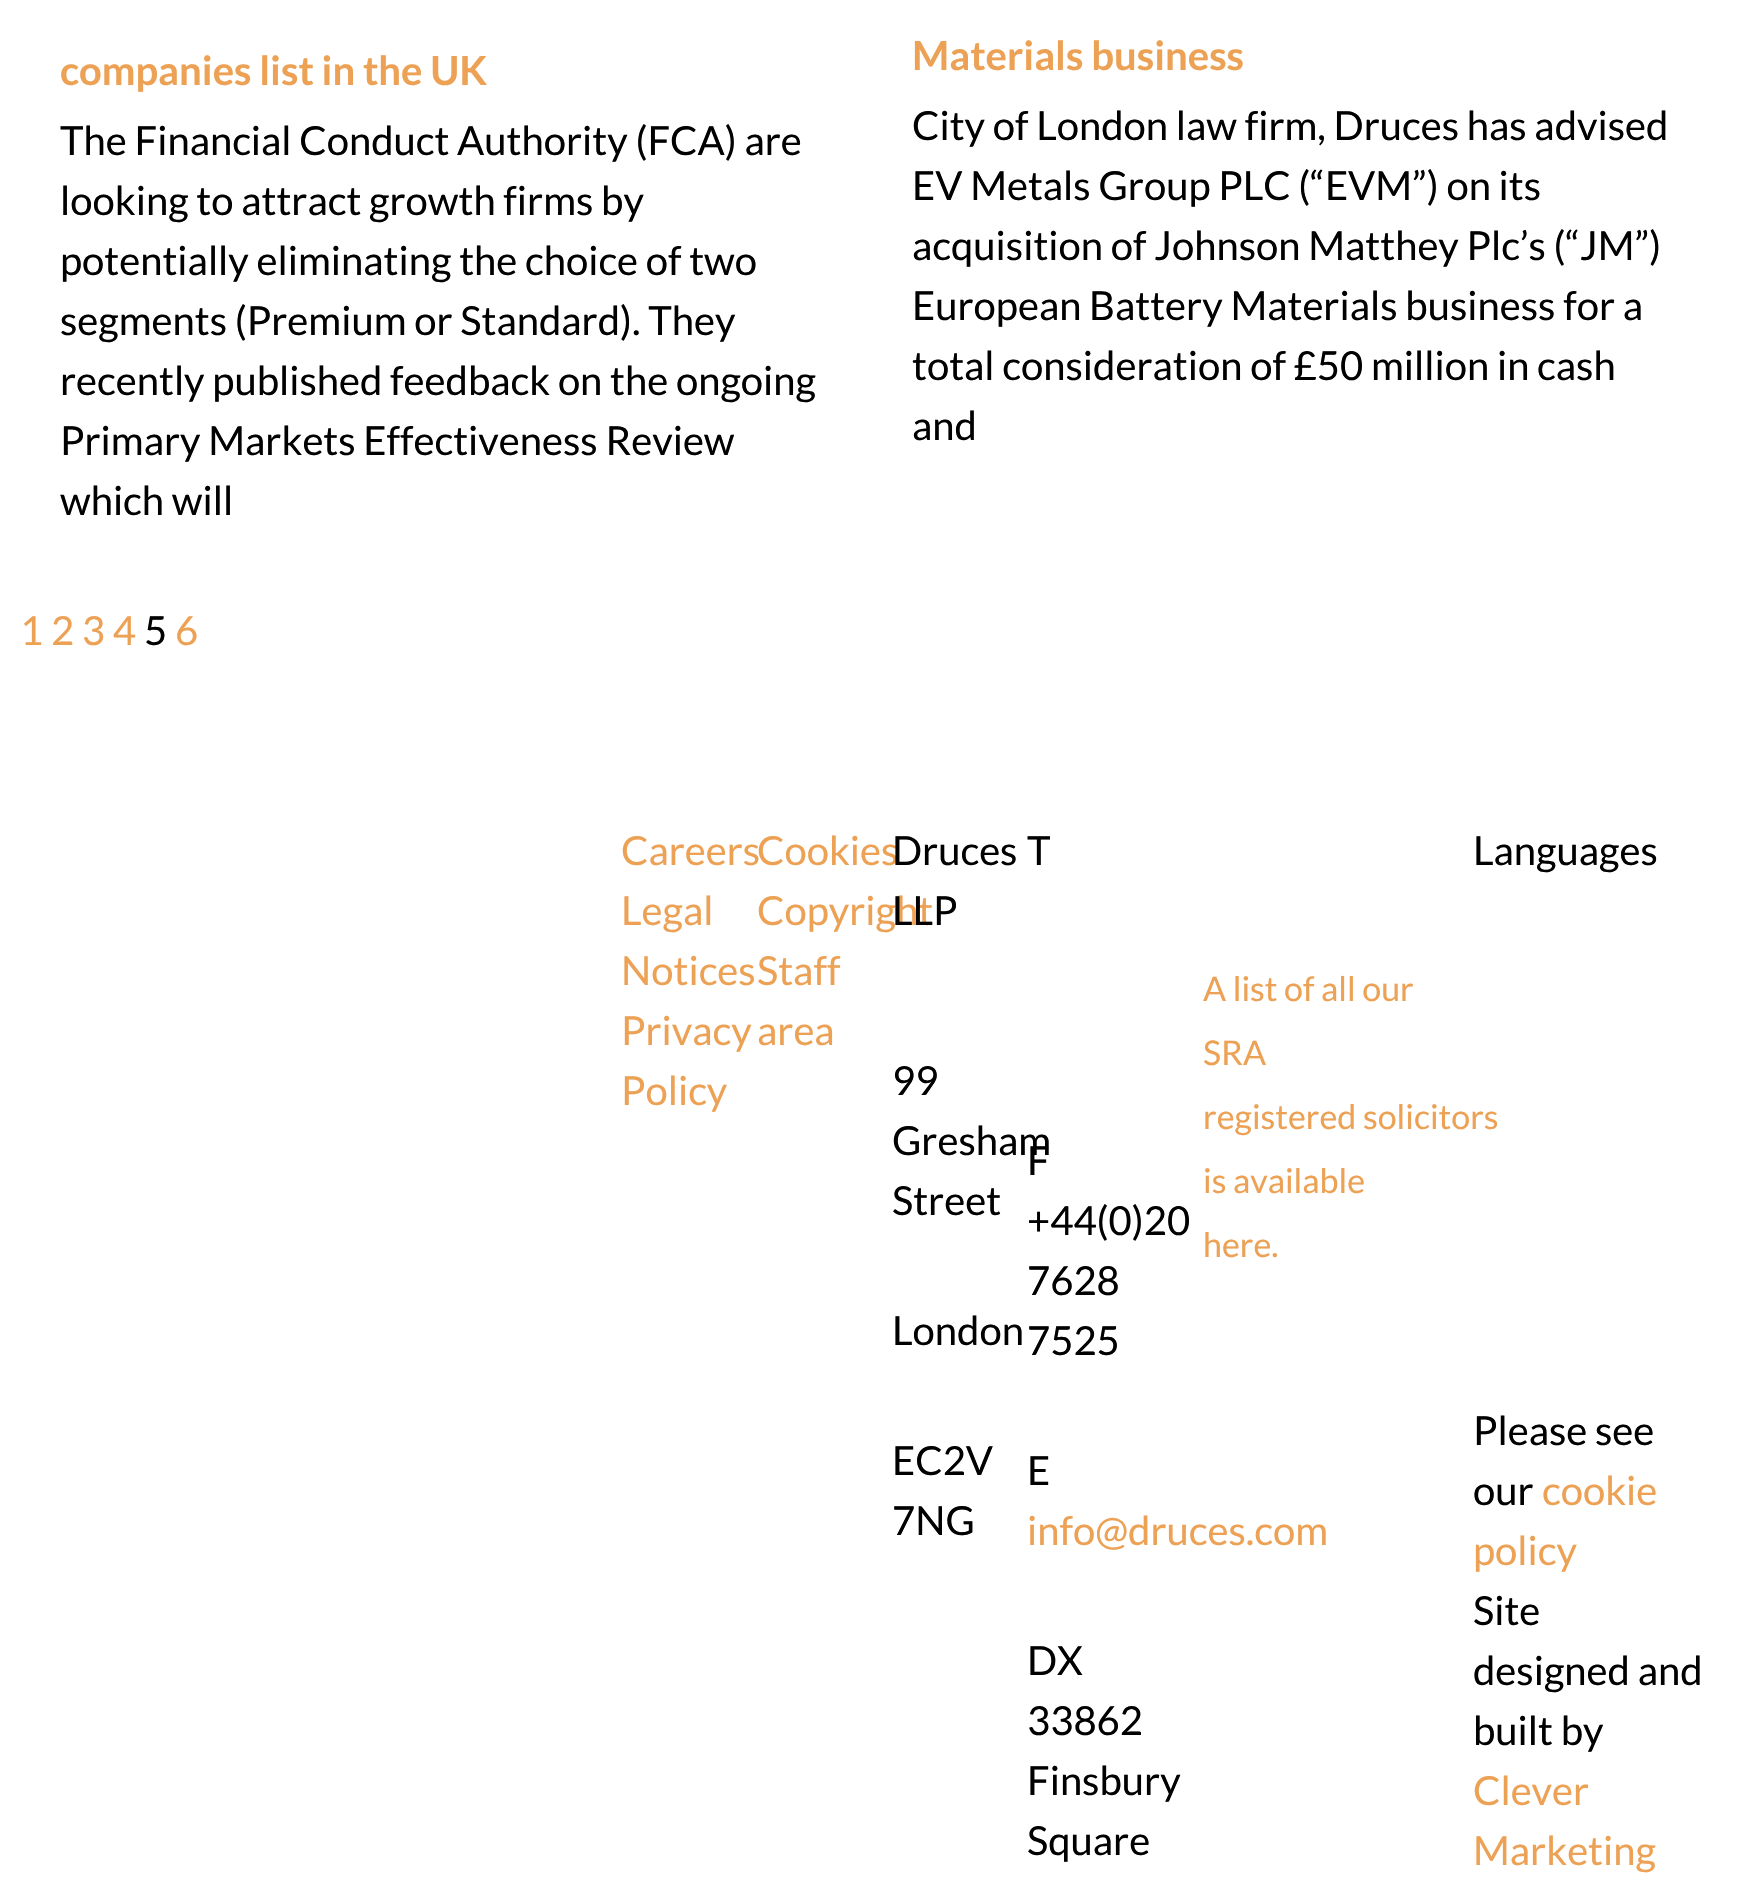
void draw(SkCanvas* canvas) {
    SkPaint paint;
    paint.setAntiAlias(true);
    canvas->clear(0xFFFFFFFF);
    SkFont font1(fontMgr->matchFamilyStyle("Lato", SkFontStyle::Bold()), 40);
    font1.setSubpixel(true);
    paint.setColor(0xFFECA154);
    canvas->drawString("companies list in the UK", 60, 85, font1, paint);
    SkFont font2(fontMgr->matchFamilyStyle("Lato", SkFontStyle::Normal()), 40);
    font2.setSubpixel(true);
    paint.setColor(0xFF000000);
    canvas->drawString("The Financial Conduct Authority (FCA) are", 60, 155, font2, paint);
    canvas->drawString("looking to attract growth firms by", 60, 215, font2, paint);
    canvas->drawString("potentially eliminating the choice of two", 60, 275, font2, paint);
    canvas->drawString("segments (Premium or Standard). They", 60, 335, font2, paint);
    canvas->drawString("recently published feedback on the ongoing", 60, 395, font2, paint);
    canvas->drawString("Primary Markets Effectiveness Review", 60, 455, font2, paint);
    canvas->drawString("which will", 60, 515, font2, paint);
    paint.setColor(0xFFECA154);
    canvas->drawString("Materials business", 912, 70, font1, paint);
    paint.setColor(0xFF000000);
    canvas->drawString("City of London law firm, Druces has advised", 912, 140, font2, paint);
    canvas->drawString("EV Metals Group PLC (“EVM”) on its", 912, 200, font2, paint);
    canvas->drawString("acquisition of Johnson Matthey Plc’s (“JM”)", 912, 260, font2, paint);
    canvas->drawString("European Battery Materials business for a", 912, 320, font2, paint);
    canvas->drawString("total consideration of £50 million in cash", 912, 380, font2, paint);
    canvas->drawString("and", 912, 440, font2, paint);
    paint.setColor(0xFFECA154);
    canvas->drawString("1 2 3 4", 20, 645, font2, paint);
    paint.setColor(0xFF000000);
    canvas->drawString("5", 144, 645, font2, paint);
    paint.setColor(0xFFECA154);
    canvas->drawString("6", 175, 645, font2, paint);
    canvas->drawString("Careers", 621, 865, font2, paint);
    canvas->drawString("Legal", 621, 925, font2, paint);
    canvas->drawString("Notices", 621, 985, font2, paint);
    canvas->drawString("Privacy", 621, 1045, font2, paint);
    canvas->drawString("Policy", 621, 1105, font2, paint);
    canvas->drawString("Cookies", 757, 865, font2, paint);
    canvas->drawString("Copyright", 757, 925, font2, paint);
    canvas->drawString("Staff", 757, 985, font2, paint);
    canvas->drawString("area", 757, 1045, font2, paint);
    paint.setColor(0xFF000000);
    canvas->drawString("Druces", 892, 865, font2, paint);
    canvas->drawString("LLP", 892, 925, font2, paint);
    canvas->drawString("99", 892, 1095, font2, paint);
    canvas->drawString("Gresham", 892, 1155, font2, paint);
    canvas->drawString("Street", 892, 1215, font2, paint);
    canvas->drawString("London", 892, 1345, font2, paint);
    canvas->drawString("EC2V", 892, 1475, font2, paint);
    canvas->drawString("7NG", 892, 1535, font2, paint);
    canvas->drawString("T", 1027, 865, font2, paint);
    canvas->drawString("F", 1027, 1175, font2, paint);
    canvas->drawString("+44(0)20", 1027, 1235, font2, paint);
    canvas->drawString("7628", 1027, 1295, font2, paint);
    canvas->drawString("7525", 1027, 1355, font2, paint);
    canvas->drawString("E", 1027, 1485, font2, paint);
    paint.setColor(0xFFECA154);
    canvas->drawString("info@druces.com", 1027, 1545, font2, paint);
    paint.setColor(0xFF000000);
    canvas->drawString("DX", 1027, 1675, font2, paint);
    canvas->drawString("33862", 1027, 1735, font2, paint);
    canvas->drawString("Finsbury", 1027, 1795, font2, paint);
    canvas->drawString("Square", 1027, 1855, font2, paint);
    SkFont font3(fontMgr->matchFamilyStyle("Lato", SkFontStyle::Normal()), 34);
    font3.setSubpixel(true);
    paint.setColor(0xFFECA154);
    canvas->drawString("A list of all our", 1203, 1001, font3, paint);
    canvas->drawString("SRA", 1203, 1065, font3, paint);
    canvas->drawString("registered solicitors", 1203, 1129, font3, paint);
    canvas->drawString("is available", 1203, 1193, font3, paint);
    canvas->drawString("here.", 1203, 1257, font3, paint);
    paint.setColor(0xFF000000);
    canvas->drawString("Languages", 1473, 865, font2, paint);
    canvas->drawString("Please see", 1473, 1445, font2, paint);
    canvas->drawString("our", 1473, 1505, font2, paint);
    paint.setColor(0xFFECA154);
    canvas->drawString("cookie", 1542, 1505, font2, paint);
    canvas->drawString("policy", 1473, 1565, font2, paint);
    paint.setColor(0xFF000000);
    canvas->drawString("Site", 1473, 1625, font2, paint);
    canvas->drawString("designed and", 1473, 1685, font2, paint);
    canvas->drawString("built by", 1473, 1745, font2, paint);
    paint.setColor(0xFFECA154);
    canvas->drawString("Clever", 1473, 1805, font2, paint);
    canvas->drawString("Marketing", 1473, 1865, font2, paint);
}
